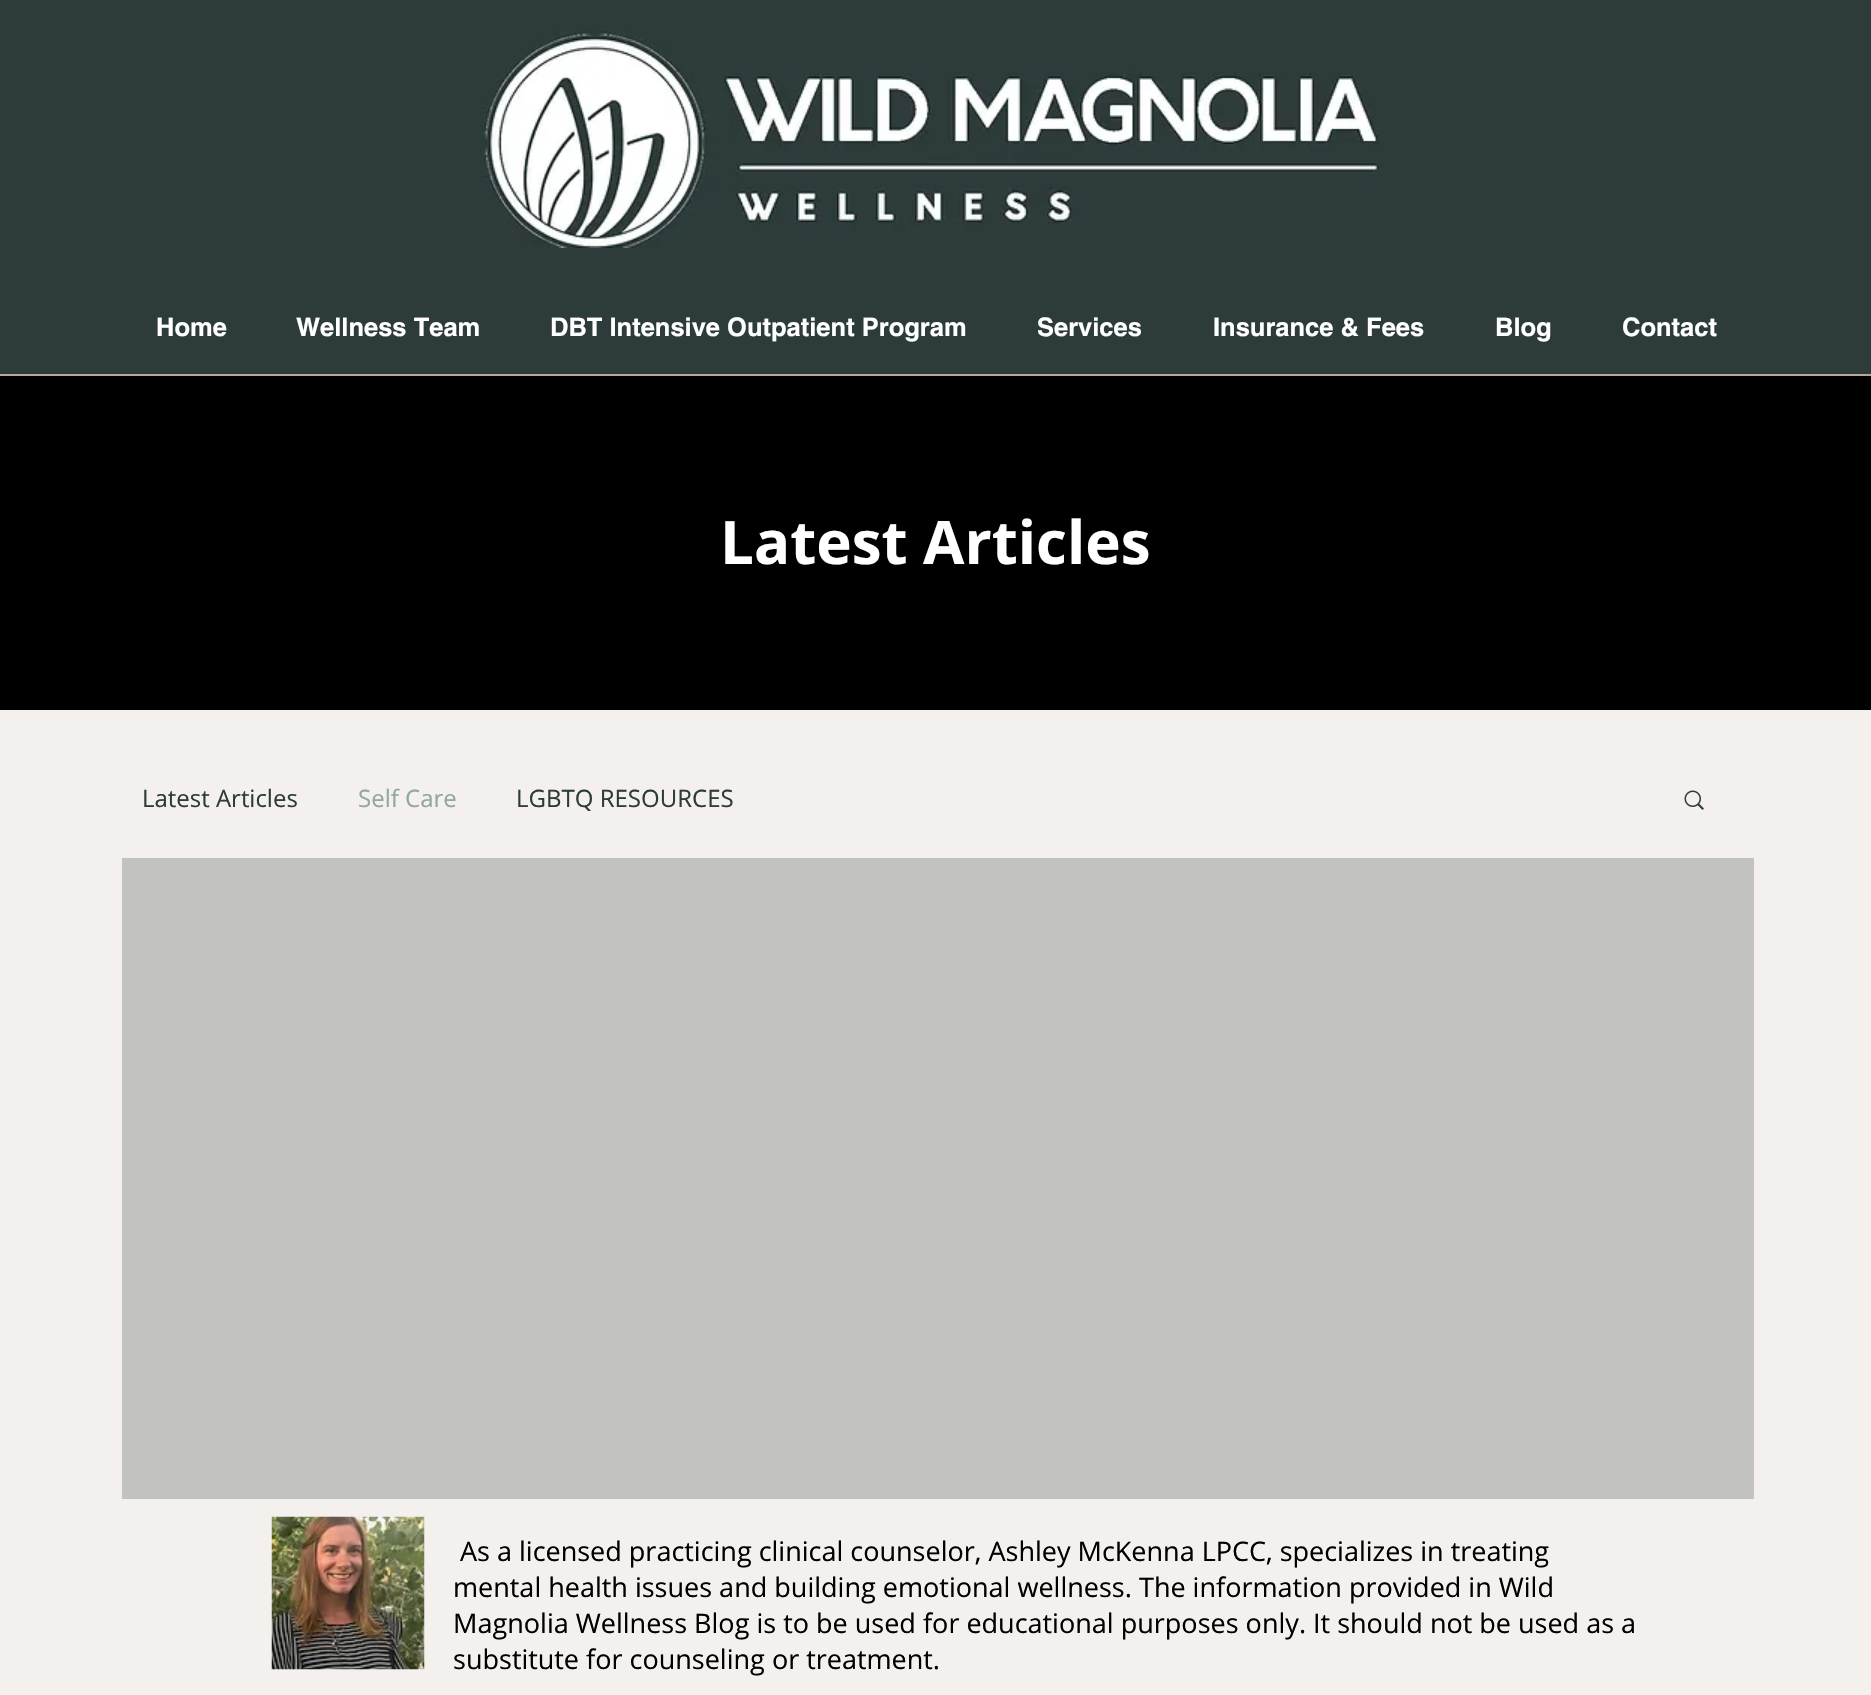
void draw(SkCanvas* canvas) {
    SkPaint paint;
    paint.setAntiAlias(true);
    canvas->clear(0xFF000000);
    paint.setColor(0xFFBAA695);
    canvas->drawRect(SkRect::MakeXYWH(0, 374, 1871, 2), paint);
    paint.setColor(0xFF2D3B3B);
    canvas->drawRect(SkRect::MakeXYWH(0, 0, 1871, 374), paint);
    canvas->drawImageRect(SkImages::DeferredFromEncodedData(SkData::MakeFromFileName("img1.png")), SkRect::MakeXYWH(484, 31, 895, 217), SkSamplingOptions());
    SkFont font1(fontMgr->matchFamilyStyle("helvetica", SkFontStyle::Bold()), 25.5f);
    font1.setSubpixel(true);
    paint.setColor(0xFFFFFFFF);
    canvas->drawString("Home", 156, 336, font1, paint);
    canvas->drawString("Wellness Team", 296, 336, font1, paint);
    canvas->drawString("DBT Intensive Outpatient Program", 550, 336, font1, paint);
    canvas->drawString("Services", 1037, 336, font1, paint);
    canvas->drawString("Insurance & Fees", 1213, 336, font1, paint);
    canvas->drawString("Blog", 1495, 336, font1, paint);
    canvas->drawString("Contact", 1622, 336, font1, paint);
    SkFont font2(fontMgr->matchFamilyStyle("Open Sans", SkFontStyle::Bold()), 60);
    font2.setSubpixel(true);
    canvas->drawString("Latest Articles", 720, 564, font2, paint);
    paint.setColor(0xFFF3F0ED);
    canvas->drawRect(SkRect::MakeXYWH(0, 710, 1871, 985), paint);
    paint.setColor(0xFFC2C3C1);
    canvas->drawRect(SkRect::MakeXYWH(122, 858, 1632, 641), paint);
    SkFont font3(fontMgr->matchFamilyStyle("Open Sans", SkFontStyle::Normal()), 24);
    font3.setSubpixel(true);
    paint.setColor(0xFF2D3B3B);
    canvas->drawString("Latest Articles", 142, 807, font3, paint);
    paint.setColor(0xFF92A6A2);
    canvas->drawString("Self Care", 358, 807, font3, paint);
    paint.setColor(0xFF2D3B3B);
    canvas->drawString("LGBTQ RESOURCES", 516, 807, font3, paint);
    canvas->drawImageRect(SkImages::DeferredFromEncodedData(SkData::MakeFromFileName("img2.png")), SkRect::MakeXYWH(1684, 790, 20, 20), SkSamplingOptions());
    canvas->drawImageRect(SkImages::DeferredFromEncodedData(SkData::MakeFromFileName("img3.png")), SkRect::MakeXYWH(271, 1516, 154, 154), SkSamplingOptions());
    SkFont font4(fontMgr->matchFamilyStyle("Open Sans", SkFontStyle::Normal()), 27);
    font4.setSubpixel(true);
    paint.setColor(0xFF000000);
    canvas->drawString("As a licensed practicing clinical counselor, Ashley McKenna LPCC, specializes in treating", 460, 1561, font4, paint);
    canvas->drawString("mental health issues and building emotional wellness. The information provided in Wild", 453, 1597, font4, paint);
    canvas->drawString("Magnolia Wellness Blog is to be used for educational purposes only. It should not be used as a", 453, 1633, font4, paint);
    canvas->drawString("substitute for counseling or treatment.", 453, 1669, font4, paint);
}
